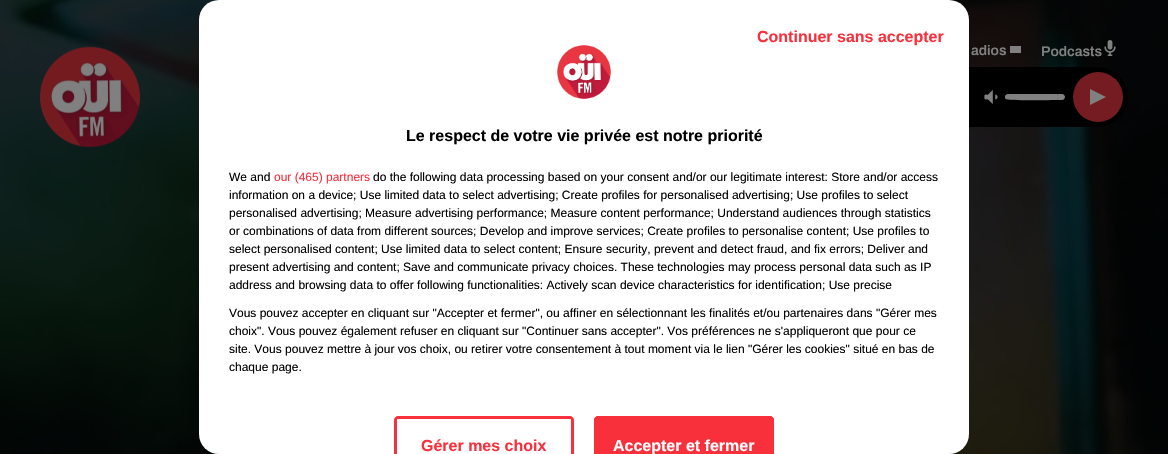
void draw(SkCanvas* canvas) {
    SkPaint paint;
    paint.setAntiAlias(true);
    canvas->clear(0xFFFFFFFF);
    canvas->drawImageRect(SkImages::DeferredFromEncodedData(SkData::MakeFromFileName("img2.png")), SkRect::MakeXYWH(0, 0, 1168, 454), SkSamplingOptions());
    paint.setColor(0xFF000000);
    canvas->drawRoundRect(SkRect::MakeXYWH(748, 67, 380, 60), 30, 30, paint);
    paint.setColor(0xFFFFFFFF);
    canvas->drawRoundRect(SkRect::MakeXYWH(199, 0, 770, 454), 20, 20, paint);
    SkFont font1(fontMgr->matchFamilyStyle("Liberation Sans", SkFontStyle::Bold()), 16);
    font1.setSubpixel(true);
    paint.setColor(0xFFF8303C);
    canvas->drawString("Continuer sans accepter", 757, 42, font1, paint);
    canvas->drawPath(SkPathBuilder().moveTo(398, 416).cubicTo(396, 416, 394, 418, 394, 420).lineTo(394, 454).lineTo(397, 454).lineTo(397, 420).cubicTo(397, 419, 397, 419, 398, 419).lineTo(570, 419).cubicTo(571, 419, 571, 419, 571, 420).lineTo(571, 454).lineTo(574, 454).lineTo(574, 420).cubicTo(574, 418, 572, 416, 570, 416).close().detach(), paint);
    canvas->drawString("Gérer mes choix", 421, 451, font1, paint);
    canvas->drawPath(SkPathBuilder().moveTo(598, 416).lineTo(770, 416).cubicTo(772, 416, 774, 418, 774, 420).lineTo(774, 454).lineTo(594, 454).lineTo(594, 420).cubicTo(594, 418, 596, 416, 598, 416).close().detach(), paint);
    canvas->drawPath(SkPathBuilder().moveTo(598, 416).cubicTo(596, 416, 594, 418, 594, 420).lineTo(594, 454).lineTo(597, 454).lineTo(597, 420).cubicTo(597, 419, 597, 419, 598, 419).lineTo(770, 419).cubicTo(771, 419, 771, 419, 771, 420).lineTo(771, 454).lineTo(774, 454).lineTo(774, 420).cubicTo(774, 418, 772, 416, 770, 416).close().detach(), paint);
    paint.setColor(0xFFFFFFFF);
    canvas->drawString("Accepter et fermer", 613, 451, font1, paint);
    canvas->drawImageRect(SkImages::DeferredFromEncodedData(SkData::MakeFromFileName("img1.png")), SkRect::MakeXYWH(557, 45, 54, 54), SkSamplingOptions());
    paint.setColor(0xFF000000);
    canvas->drawString("Le respect de votre vie privée est notre priorité", 406, 141, font1, paint);
    SkFont font2(fontMgr->matchFamilyStyle("Liberation Sans", SkFontStyle::Normal()), 12);
    font2.setSubpixel(true);
    canvas->drawString("We and", 229, 181, font2, paint);
    paint.setColor(0xFFF8303C);
    canvas->drawString("our (465) partners", 274, 181, font2, paint);
    paint.setColor(0xFF000000);
    canvas->drawString("do the following data processing based on your consent and/or our legitimate interest: Store and/or access", 373, 181, font2, paint);
    canvas->drawString("information on a device; Use limited data to select advertising; Create profiles for personalised advertising; Use profiles to select", 229, 199, font2, paint);
    canvas->drawString("personalised advertising; Measure advertising performance; Measure content performance; Understand audiences through statistics", 229, 217, font2, paint);
    canvas->drawString("or combinations of data from different sources; Develop and improve services; Create profiles to personalise content; Use profiles to", 229, 235, font2, paint);
    canvas->drawString("select personalised content; Use limited data to select content; Ensure security, prevent and detect fraud, and fix errors; Deliver and", 229, 253, font2, paint);
    canvas->drawString("present advertising and content; Save and communicate privacy choices. These technologies may process personal data such as IP", 229, 271, font2, paint);
    canvas->drawString("address and browsing data to offer following functionalities: Actively scan device characteristics for identification; Use precise", 229, 289, font2, paint);
    canvas->drawString("Vous pouvez accepter en cliquant sur \"Accepter et fermer\", ou affiner en sélectionnant les finalités et/ou partenaires dans \"Gérer mes", 229, 317, font2, paint);
    canvas->drawString("choix\". Vous pouvez également refuser en cliquant sur \"Continuer sans accepter\". Vos préférences ne s'appliqueront que pour ce", 229, 335, font2, paint);
    canvas->drawString("site. Vous pouvez mettre à jour vos choix, ou retirer votre consentement à tout moment via le lien \"Gérer les cookies\" situé en bas de", 229, 353, font2, paint);
    canvas->drawString("chaque page.", 229, 371, font2, paint);
    canvas->drawImageRect(SkImages::DeferredFromEncodedData(SkData::MakeFromFileName("img3.png")), SkRect::MakeXYWH(40, 46, 100, 101), SkSamplingOptions());
    SkFont font3(fontMgr->matchFamilyStyle("Archivo", SkFontStyle(600, SkFontStyle::kNormal_Width, SkFontStyle::kUpright_Slant)), 14);
    font3.setSubpixel(true);
    paint.setColor(0xFF808080);
    canvas->drawString("adios", 971, 55, font3, paint);
    canvas->drawRect(SkRect::MakeXYWH(1010, 46, 11, 7), paint);
    canvas->drawString("Podcasts", 1041, 56, font3, paint);
    canvas->drawImageRect(SkImages::DeferredFromEncodedData(SkData::MakeFromFileName("img4.png")), SkRect::MakeXYWH(1104, 40, 12, 16), SkSamplingOptions());
    canvas->drawImageRect(SkImages::DeferredFromEncodedData(SkData::MakeFromFileName("img5.png")), SkRect::MakeXYWH(984, 90, 14, 14), SkSamplingOptions());
    paint.setColor(0xFF1A1A1A);
    canvas->drawRoundRect(SkRect::MakeXYWH(1005, 94, 60, 6), 3, 3, paint);
    paint.setColor(0xFF808080);
    canvas->drawPath(SkPathBuilder().moveTo(1008, 94).cubicTo(1005, 94, 1004, 98, 1006, 99).cubicTo(1008, 101, 1052, 100, 1058, 100).cubicTo(1057, 98, 1057, 96, 1058, 94).close().detach(), paint);
    canvas->save();
    canvas->clipPath(SkPathBuilder().moveTo(1008, 94).lineTo(1062, 94).cubicTo(1063.5f, 94, 1065, 95.5f, 1065, 97).cubicTo(1065, 98.5f, 1063.5f, 100, 1062, 100).lineTo(1008, 100).cubicTo(1006.5f, 100, 1005, 98.5f, 1005, 97).cubicTo(1005, 95.5f, 1006.5f, 94, 1008, 94).close().detach(), true);
    canvas->drawCircle(1061, 97, 4, paint);
    canvas->restore();
    paint.setColor(0xFF741C21);
    canvas->drawCircle(1098, 97, 25, paint);
    paint.setColor(0xFF808080);
    canvas->drawPath(SkPathBuilder().moveTo(1106, 97).lineTo(1090, 105).lineTo(1090, 89).close().detach(), paint);
}
